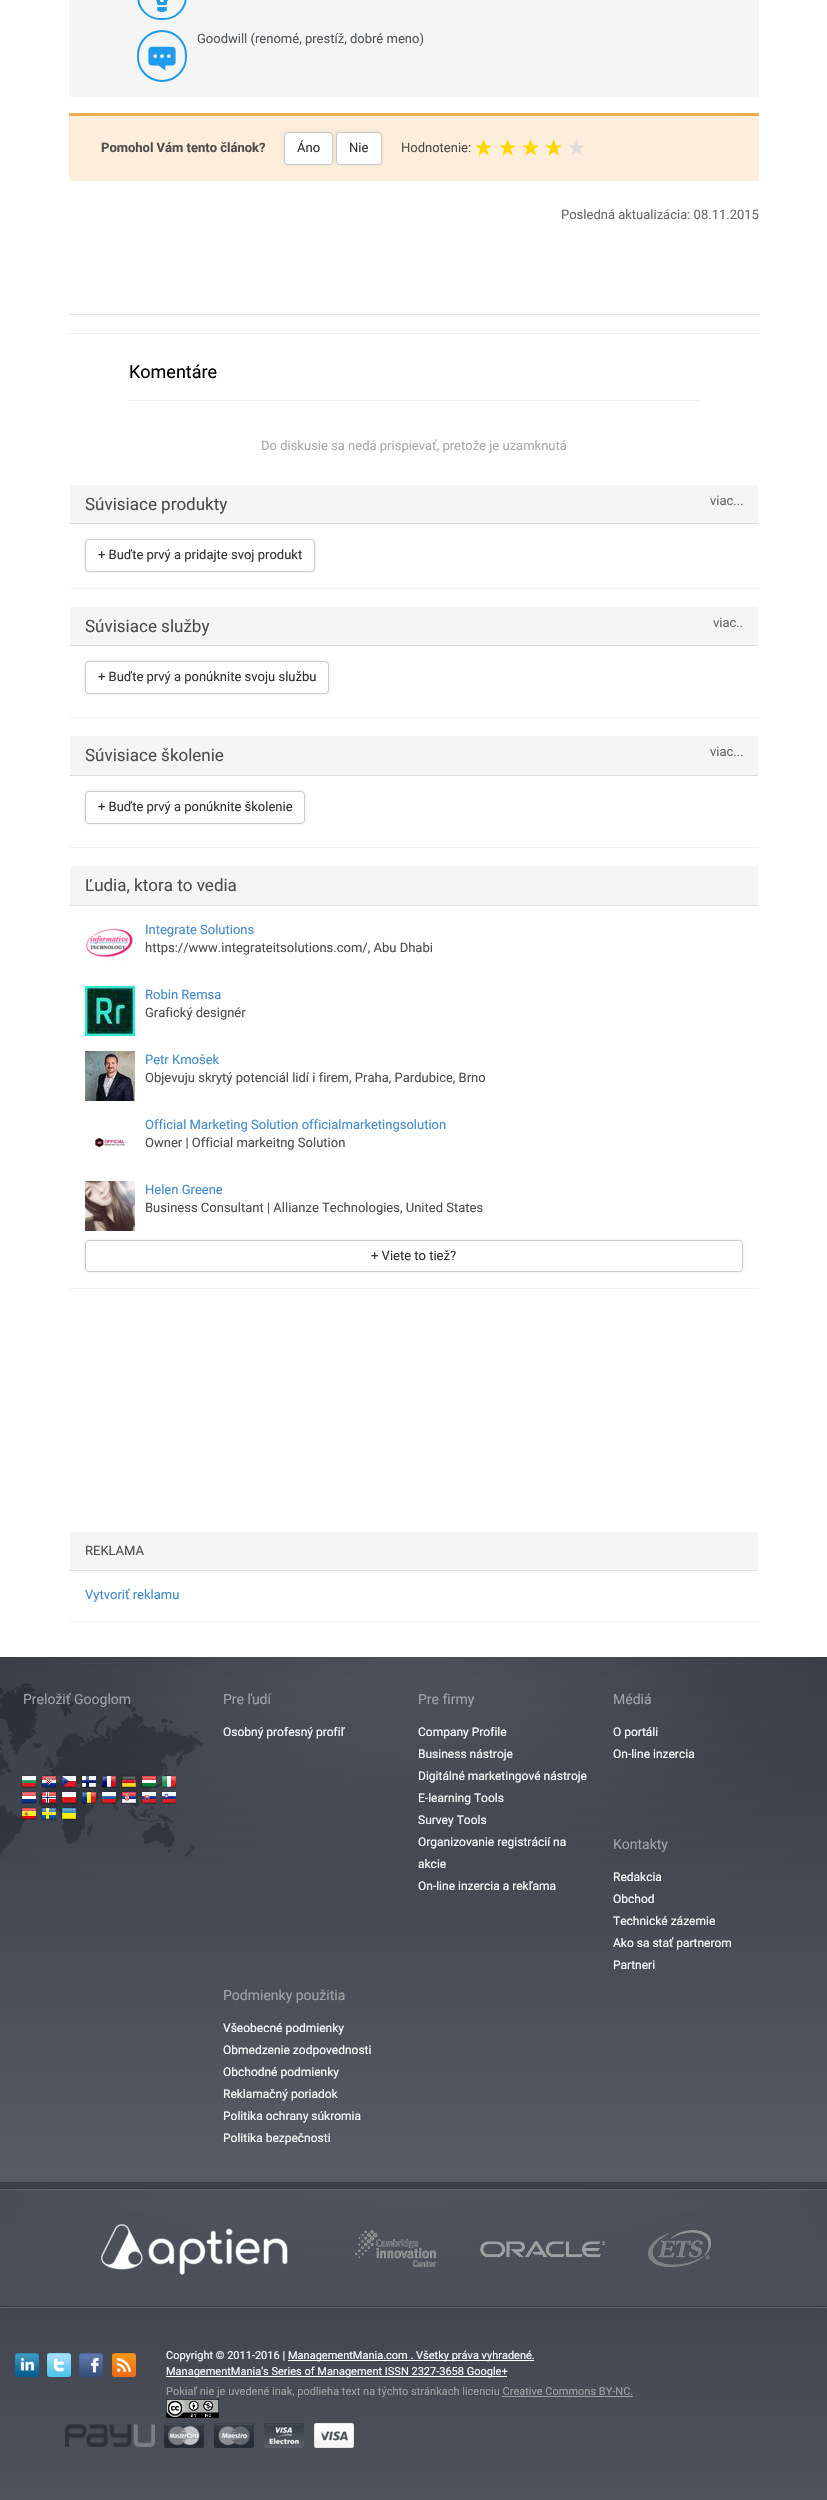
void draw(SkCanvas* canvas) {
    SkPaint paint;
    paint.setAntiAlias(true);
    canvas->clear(0xFFFFFFFF);
    paint.setColor(0xFFF5F5F5);
    canvas->drawRect(SkRect::MakeXYWH(69, 0, 690, 97), paint);
    paint.setStyle(SkPaint::kStroke_Style);
    paint.setStrokeWidth(2);
    paint.setColor(0xFF1E9BEA);
    canvas->drawRoundRect(SkRect::MakeXYWH(138, -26, 48, 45), 24, 24, paint);
    canvas->drawImageRect(SkImages::DeferredFromEncodedData(SkData::MakeFromFileName("img1.png")), SkRect::MakeXYWH(156, 0, 12, 12), SkSamplingOptions());
    canvas->drawRoundRect(SkRect::MakeXYWH(138, 31, 48, 50), 24, 24, paint);
    canvas->drawImageRect(SkImages::DeferredFromEncodedData(SkData::MakeFromFileName("img2.png")), SkRect::MakeXYWH(148, 46, 28, 25), SkSamplingOptions());
    SkFont font1(fontMgr->matchFamilyStyle("Roboto", SkFontStyle::Normal()), 13);
    font1.setSubpixel(true);
    paint.setStyle(SkPaint::kFill_Style);
    paint.setColor(0xFF50555A);
    canvas->drawString("Goodwill (renomé, prestíž, dobré meno)", 197, 43, font1, paint);
    paint.setColor(0xFFFCEEDB);
    canvas->drawRect(SkRect::MakeXYWH(69, 116, 690, 65), paint);
    paint.setColor(0xFFF0AD4E);
    canvas->drawRect(SkRect::MakeXYWH(69, 113, 690, 3), paint);
    SkFont font2(fontMgr->matchFamilyStyle("Roboto", SkFontStyle::Bold()), 13);
    font2.setSubpixel(true);
    paint.setColor(0xFF4D4D4D);
    canvas->drawString("Pomohol Vám tento článok?", 101, 152, font2, paint);
    paint.setColor(0x1A000000);
    paint.setMaskFilter(SkMaskFilter::MakeBlur(kNormal_SkBlurStyle, 1.5f));
    canvas->drawRoundRect(SkRect::MakeXYWH(284, 132, 49, 33), 4, 4, paint);
    paint.setMaskFilter(nullptr);
    paint.setColor(0xFFFFFFFF);
    canvas->drawRoundRect(SkRect::MakeXYWH(284.5f, 132.5f, 48, 32), 3.5f, 3.5f, paint);
    paint.setStyle(SkPaint::kStroke_Style);
    paint.setStrokeWidth(1);
    paint.setColor(0xFFCCCCCC);
    canvas->drawRoundRect(SkRect::MakeXYWH(284.5f, 132.5f, 48, 32), 3.5f, 3.5f, paint);
    paint.setStyle(SkPaint::kFill_Style);
    paint.setColor(0xFF333333);
    canvas->drawString("Áno", 297, 152, font1, paint);
    paint.setColor(0x1A000000);
    paint.setMaskFilter(SkMaskFilter::MakeBlur(kNormal_SkBlurStyle, 1.5f));
    canvas->drawRoundRect(SkRect::MakeXYWH(336, 132, 46, 33), 4, 4, paint);
    paint.setMaskFilter(nullptr);
    paint.setColor(0xFFFFFFFF);
    canvas->drawRoundRect(SkRect::MakeXYWH(336.5f, 132.5f, 45, 32), 3.5f, 3.5f, paint);
    paint.setStyle(SkPaint::kStroke_Style);
    paint.setColor(0xFFCCCCCC);
    canvas->drawRoundRect(SkRect::MakeXYWH(336.5f, 132.5f, 45, 32), 3.5f, 3.5f, paint);
    paint.setStyle(SkPaint::kFill_Style);
    paint.setColor(0xFF333333);
    canvas->drawString("Nie", 349, 152, font1, paint);
    paint.setColor(0xFF4D4D4D);
    canvas->drawString("Hodnotenie:", 401, 152, font1, paint);
    canvas->drawImageRect(SkImages::DeferredFromEncodedData(SkData::MakeFromFileName("img3.png")), SkRect::MakeXYWH(475, 139, 17, 17), SkSamplingOptions());
    canvas->drawImageRect(SkImages::DeferredFromEncodedData(SkData::MakeFromFileName("img3.png")), SkRect::MakeXYWH(499, 139, 17, 17), SkSamplingOptions());
    canvas->drawImageRect(SkImages::DeferredFromEncodedData(SkData::MakeFromFileName("img3.png")), SkRect::MakeXYWH(522, 139, 17, 17), SkSamplingOptions());
    canvas->drawImageRect(SkImages::DeferredFromEncodedData(SkData::MakeFromFileName("img3.png")), SkRect::MakeXYWH(545, 139, 17, 17), SkSamplingOptions());
    canvas->drawImageRect(SkImages::DeferredFromEncodedData(SkData::MakeFromFileName("img4.png")), SkRect::MakeXYWH(568, 139, 17, 17), SkSamplingOptions());
    paint.setColor(0xFF696969);
    canvas->drawString("Posledná aktualizácia: 08.11.2015", 561, 219, font1, paint);
    paint.setColor(0xFFE0E2E4);
    canvas->drawRect(SkRect::MakeXYWH(69, 314, 690, 1), paint);
    paint.setColor(0xFFEEEEEE);
    canvas->drawRect(SkRect::MakeXYWH(69, 333, 690, 1), paint);
    SkFont font3(fontMgr->matchFamilyStyle("Roboto", SkFontStyle::Normal()), 18);
    font3.setSubpixel(true);
    paint.setColor(0xFF000000);
    canvas->drawString("Komentáre", 129, 378, font3, paint);
    paint.setColor(0xFFEEEEEE);
    canvas->drawRect(SkRect::MakeXYWH(129, 400, 570, 1), paint);
    paint.setColor(0xFFAAAAAA);
    canvas->drawString("Do diskusie sa nedá prispievať, pretože je uzamknutá", 261, 450, font1, paint);
    canvas->save();
    canvas->clipRect(SkRect::MakeXYWH(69, 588, 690, 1));
    paint.setColor(0x0D000000);
    paint.setMaskFilter(SkMaskFilter::MakeBlur(kNormal_SkBlurStyle, 0.5f));
    canvas->drawRect(SkRect::MakeXYWH(69, 485, 690, 104), paint);
    paint.setMaskFilter(nullptr);
    canvas->restore();
    paint.setColor(0xFFF5F5F5);
    canvas->drawRect(SkRect::MakeXYWH(70, 485, 688, 38), paint);
    paint.setColor(0xFFDDDDDD);
    canvas->drawRect(SkRect::MakeXYWH(70, 523, 688, 1), paint);
    SkFont font4(fontMgr->matchFamilyStyle("Roboto", SkFontStyle::Normal()), 17);
    font4.setSubpixel(true);
    paint.setColor(0xFF4D4D4D);
    canvas->drawString("Súvisiace produkty", 85, 510, font4, paint);
    paint.setColor(0xFF696969);
    canvas->drawString("viac...", 710, 505, font1, paint);
    paint.setColor(0x1A000000);
    paint.setMaskFilter(SkMaskFilter::MakeBlur(kNormal_SkBlurStyle, 1.5f));
    canvas->drawRoundRect(SkRect::MakeXYWH(85, 539, 230, 33), 4, 4, paint);
    paint.setMaskFilter(nullptr);
    paint.setColor(0xFFFFFFFF);
    canvas->drawRoundRect(SkRect::MakeXYWH(85.5f, 539.5f, 229, 32), 3.5f, 3.5f, paint);
    paint.setStyle(SkPaint::kStroke_Style);
    paint.setColor(0xFFCCCCCC);
    canvas->drawRoundRect(SkRect::MakeXYWH(85.5f, 539.5f, 229, 32), 3.5f, 3.5f, paint);
    paint.setStyle(SkPaint::kFill_Style);
    paint.setColor(0xFF333333);
    canvas->drawString("+ Buďte prvý a pridajte svoj produkt", 98, 559, font1, paint);
    canvas->save();
    canvas->clipRect(SkRect::MakeXYWH(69, 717, 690, 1));
    paint.setColor(0x0D000000);
    paint.setMaskFilter(SkMaskFilter::MakeBlur(kNormal_SkBlurStyle, 0.5f));
    canvas->drawRect(SkRect::MakeXYWH(69, 607, 690, 111), paint);
    paint.setMaskFilter(nullptr);
    canvas->restore();
    paint.setColor(0xFFF5F5F5);
    canvas->drawRect(SkRect::MakeXYWH(70, 607, 688, 38), paint);
    paint.setColor(0xFFDDDDDD);
    canvas->drawRect(SkRect::MakeXYWH(70, 645, 688, 1), paint);
    paint.setColor(0xFF4D4D4D);
    canvas->drawString("Súvisiace služby", 85, 632, font4, paint);
    paint.setColor(0xFF696969);
    canvas->drawString("viac..", 713, 627, font1, paint);
    paint.setColor(0x1A000000);
    paint.setMaskFilter(SkMaskFilter::MakeBlur(kNormal_SkBlurStyle, 1.5f));
    canvas->drawRoundRect(SkRect::MakeXYWH(85, 661, 244, 33), 4, 4, paint);
    paint.setMaskFilter(nullptr);
    paint.setColor(0xFFFFFFFF);
    canvas->drawRoundRect(SkRect::MakeXYWH(85.5f, 661.5f, 243, 32), 3.5f, 3.5f, paint);
    paint.setStyle(SkPaint::kStroke_Style);
    paint.setColor(0xFFCCCCCC);
    canvas->drawRoundRect(SkRect::MakeXYWH(85.5f, 661.5f, 243, 32), 3.5f, 3.5f, paint);
    paint.setStyle(SkPaint::kFill_Style);
    paint.setColor(0xFF333333);
    canvas->drawString("+ Buďte prvý a ponúknite svoju službu", 98, 681, font1, paint);
    canvas->save();
    canvas->clipRect(SkRect::MakeXYWH(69, 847, 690, 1));
    paint.setColor(0x0D000000);
    paint.setMaskFilter(SkMaskFilter::MakeBlur(kNormal_SkBlurStyle, 0.5f));
    canvas->drawRect(SkRect::MakeXYWH(69, 736, 690, 112), paint);
    paint.setMaskFilter(nullptr);
    canvas->restore();
    paint.setColor(0xFFF5F5F5);
    canvas->drawRect(SkRect::MakeXYWH(70, 736, 688, 39), paint);
    paint.setColor(0xFFDDDDDD);
    canvas->drawRect(SkRect::MakeXYWH(70, 775, 688, 1), paint);
    paint.setColor(0xFF4D4D4D);
    canvas->drawString("Súvisiace školenie", 85, 761, font4, paint);
    paint.setColor(0xFF696969);
    canvas->drawString("viac...", 710, 756, font1, paint);
    paint.setColor(0x1A000000);
    paint.setMaskFilter(SkMaskFilter::MakeBlur(kNormal_SkBlurStyle, 1.5f));
    canvas->drawRoundRect(SkRect::MakeXYWH(85, 791, 220, 33), 4, 4, paint);
    paint.setMaskFilter(nullptr);
    paint.setColor(0xFFFFFFFF);
    canvas->drawRoundRect(SkRect::MakeXYWH(85.5f, 791.5f, 219, 32), 3.5f, 3.5f, paint);
    paint.setStyle(SkPaint::kStroke_Style);
    paint.setColor(0xFFCCCCCC);
    canvas->drawRoundRect(SkRect::MakeXYWH(85.5f, 791.5f, 219, 32), 3.5f, 3.5f, paint);
    paint.setStyle(SkPaint::kFill_Style);
    paint.setColor(0xFF333333);
    canvas->drawString("+ Buďte prvý a ponúknite školenie", 98, 811, font1, paint);
    canvas->save();
    canvas->clipRect(SkRect::MakeXYWH(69, 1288, 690, 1));
    paint.setColor(0x0D000000);
    paint.setMaskFilter(SkMaskFilter::MakeBlur(kNormal_SkBlurStyle, 0.5f));
    canvas->drawRect(SkRect::MakeXYWH(69, 866, 690, 423), paint);
    paint.setMaskFilter(nullptr);
    canvas->restore();
    paint.setColor(0xFFF5F5F5);
    canvas->drawRect(SkRect::MakeXYWH(70, 866, 688, 39), paint);
    paint.setColor(0xFFDDDDDD);
    canvas->drawRect(SkRect::MakeXYWH(70, 905, 688, 1), paint);
    paint.setColor(0xFF4D4D4D);
    canvas->drawString("Ľudia, ktora to vedia", 85, 891, font4, paint);
    canvas->drawImageRect(SkImages::DeferredFromEncodedData(SkData::MakeFromFileName("img5.png")), SkRect::MakeXYWH(86, 923, 48, 47), SkSamplingOptions());
    paint.setColor(0xFF428BCA);
    canvas->drawString("Integrate Solutions", 145, 934, font1, paint);
    paint.setColor(0xFF4D4D4D);
    canvas->drawString("https://www.integrateitsolutions.com/, Abu Dhabi", 145, 952, font1, paint);
    canvas->drawImageRect(SkImages::DeferredFromEncodedData(SkData::MakeFromFileName("img6.png")), SkRect::MakeXYWH(85, 986, 50, 50), SkSamplingOptions());
    paint.setColor(0xFF428BCA);
    canvas->drawString("Robin Remsa", 145, 999, font1, paint);
    paint.setColor(0xFF4D4D4D);
    canvas->drawString("Grafický designér", 145, 1017, font1, paint);
    canvas->drawImageRect(SkImages::DeferredFromEncodedData(SkData::MakeFromFileName("img7.png")), SkRect::MakeXYWH(85, 1051, 50, 50), SkSamplingOptions());
    paint.setColor(0xFF428BCA);
    canvas->drawString("Petr Kmošek", 145, 1064, font1, paint);
    paint.setColor(0xFF4D4D4D);
    canvas->drawString("Objevuju skrytý potenciál lidí i firem, Praha, Pardubice, Brno", 145, 1082, font1, paint);
    canvas->drawImageRect(SkImages::DeferredFromEncodedData(SkData::MakeFromFileName("img8.png")), SkRect::MakeXYWH(94, 1137, 31, 11), SkSamplingOptions());
    paint.setColor(0xFF428BCA);
    canvas->drawString("Official Marketing Solution officialmarketingsolution", 145, 1129, font1, paint);
    paint.setColor(0xFF4D4D4D);
    canvas->drawString("Owner | Official markeitng Solution", 145, 1147, font1, paint);
    canvas->drawImageRect(SkImages::DeferredFromEncodedData(SkData::MakeFromFileName("img9.png")), SkRect::MakeXYWH(85, 1181, 50, 50), SkSamplingOptions());
    paint.setColor(0xFF428BCA);
    canvas->drawString("Helen Greene", 145, 1194, font1, paint);
    paint.setColor(0xFF4D4D4D);
    canvas->drawString("Business Consultant | Allianze Technologies, United States", 145, 1212, font1, paint);
    paint.setColor(0x1A000000);
    paint.setMaskFilter(SkMaskFilter::MakeBlur(kNormal_SkBlurStyle, 1.5f));
    canvas->drawRoundRect(SkRect::MakeXYWH(85, 1240, 658, 32), 4, 4, paint);
    paint.setMaskFilter(nullptr);
    paint.setColor(0xFFFFFFFF);
    canvas->drawRoundRect(SkRect::MakeXYWH(85.5f, 1240.5f, 657, 31), 3.5f, 3.5f, paint);
    paint.setStyle(SkPaint::kStroke_Style);
    paint.setColor(0xFFCCCCCC);
    canvas->drawRoundRect(SkRect::MakeXYWH(85.5f, 1240.5f, 657, 31), 3.5f, 3.5f, paint);
    paint.setStyle(SkPaint::kFill_Style);
    paint.setColor(0xFF333333);
    canvas->drawString("+ Viete to tiež?", 371, 1260, font1, paint);
    canvas->save();
    canvas->clipRect(SkRect::MakeXYWH(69, 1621, 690, 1));
    paint.setColor(0x0D000000);
    paint.setMaskFilter(SkMaskFilter::MakeBlur(kNormal_SkBlurStyle, 0.5f));
    canvas->drawRect(SkRect::MakeXYWH(69, 1532, 690, 90), paint);
    paint.setMaskFilter(nullptr);
    canvas->restore();
    paint.setColor(0xFFF5F5F5);
    canvas->drawRect(SkRect::MakeXYWH(70, 1532, 688, 38), paint);
    paint.setColor(0xFFDDDDDD);
    canvas->drawRect(SkRect::MakeXYWH(70, 1570, 688, 1), paint);
    paint.setColor(0xFF4D4D4D);
    canvas->drawString("REKLAMA", 85, 1555, font1, paint);
    paint.setColor(0xFF428BCA);
    canvas->drawString("Vytvoriť reklamu", 85, 1599, font1, paint);
    canvas->drawImageRect(SkImages::DeferredFromEncodedData(SkData::MakeFromFileName("img10.png")), SkRect::MakeXYWH(0, 2182, 827, 318), SkSamplingOptions());
    canvas->drawImageRect(SkImages::DeferredFromEncodedData(SkData::MakeFromFileName("img11.png")), SkRect::MakeXYWH(0, 1657, 827, 525), SkSamplingOptions());
    canvas->drawImageRect(SkImages::DeferredFromEncodedData(SkData::MakeFromFileName("img12.png")), SkRect::MakeXYWH(0, 1683, 204, 185), SkSamplingOptions());
    SkFont font5(fontMgr->matchFamilyStyle("Roboto", SkFontStyle::Normal()), 14);
    font5.setSubpixel(true);
    paint.setColor(0xFFA0A2A4);
    canvas->drawString("Preložiť Googlom", 23, 1704, font5, paint);
    canvas->drawImageRect(SkImages::DeferredFromEncodedData(SkData::MakeFromFileName("img13.png")), SkRect::MakeXYWH(21, 1775, 15, 13), SkSamplingOptions());
    canvas->drawImageRect(SkImages::DeferredFromEncodedData(SkData::MakeFromFileName("img14.png")), SkRect::MakeXYWH(41, 1775, 15, 13), SkSamplingOptions());
    canvas->drawImageRect(SkImages::DeferredFromEncodedData(SkData::MakeFromFileName("img15.png")), SkRect::MakeXYWH(61, 1775, 15, 13), SkSamplingOptions());
    canvas->drawImageRect(SkImages::DeferredFromEncodedData(SkData::MakeFromFileName("img16.png")), SkRect::MakeXYWH(81, 1775, 15, 13), SkSamplingOptions());
    canvas->drawImageRect(SkImages::DeferredFromEncodedData(SkData::MakeFromFileName("img17.png")), SkRect::MakeXYWH(101, 1775, 15, 13), SkSamplingOptions());
    canvas->drawImageRect(SkImages::DeferredFromEncodedData(SkData::MakeFromFileName("img18.png")), SkRect::MakeXYWH(121, 1775, 15, 13), SkSamplingOptions());
    canvas->drawImageRect(SkImages::DeferredFromEncodedData(SkData::MakeFromFileName("img19.png")), SkRect::MakeXYWH(141, 1775, 15, 13), SkSamplingOptions());
    canvas->drawImageRect(SkImages::DeferredFromEncodedData(SkData::MakeFromFileName("img20.png")), SkRect::MakeXYWH(161, 1775, 15, 13), SkSamplingOptions());
    canvas->drawImageRect(SkImages::DeferredFromEncodedData(SkData::MakeFromFileName("img21.png")), SkRect::MakeXYWH(21, 1791, 15, 13), SkSamplingOptions());
    canvas->drawImageRect(SkImages::DeferredFromEncodedData(SkData::MakeFromFileName("img22.png")), SkRect::MakeXYWH(41, 1791, 15, 13), SkSamplingOptions());
    canvas->drawImageRect(SkImages::DeferredFromEncodedData(SkData::MakeFromFileName("img23.png")), SkRect::MakeXYWH(61, 1791, 15, 13), SkSamplingOptions());
    canvas->drawImageRect(SkImages::DeferredFromEncodedData(SkData::MakeFromFileName("img24.png")), SkRect::MakeXYWH(81, 1791, 15, 13), SkSamplingOptions());
    canvas->drawImageRect(SkImages::DeferredFromEncodedData(SkData::MakeFromFileName("img25.png")), SkRect::MakeXYWH(101, 1791, 15, 13), SkSamplingOptions());
    canvas->drawImageRect(SkImages::DeferredFromEncodedData(SkData::MakeFromFileName("img26.png")), SkRect::MakeXYWH(121, 1791, 15, 13), SkSamplingOptions());
    canvas->drawImageRect(SkImages::DeferredFromEncodedData(SkData::MakeFromFileName("img27.png")), SkRect::MakeXYWH(141, 1791, 15, 13), SkSamplingOptions());
    canvas->drawImageRect(SkImages::DeferredFromEncodedData(SkData::MakeFromFileName("img28.png")), SkRect::MakeXYWH(161, 1791, 15, 13), SkSamplingOptions());
    canvas->drawImageRect(SkImages::DeferredFromEncodedData(SkData::MakeFromFileName("img29.png")), SkRect::MakeXYWH(21, 1807, 15, 13), SkSamplingOptions());
    canvas->drawImageRect(SkImages::DeferredFromEncodedData(SkData::MakeFromFileName("img30.png")), SkRect::MakeXYWH(41, 1807, 15, 13), SkSamplingOptions());
    canvas->drawImageRect(SkImages::DeferredFromEncodedData(SkData::MakeFromFileName("img31.png")), SkRect::MakeXYWH(61, 1807, 15, 13), SkSamplingOptions());
    canvas->drawString("Pre ľudí", 223, 1704, font5, paint);
    SkFont font6(fontMgr->matchFamilyStyle("Roboto", SkFontStyle::Normal()), 12);
    font6.setSubpixel(true);
    paint.setColor(0xFFFFFFFF);
    canvas->drawString("Osobný profesný profiľ", 223, 1736, font6, paint);
    paint.setColor(0xFFA0A2A4);
    canvas->drawString("Pre firmy", 418, 1704, font5, paint);
    paint.setColor(0xFFFFFFFF);
    canvas->drawString("Company Profile", 418, 1736, font6, paint);
    canvas->drawString("Business nástroje", 418, 1758, font6, paint);
    canvas->drawString("Digitálné marketingové nástroje", 418, 1780, font6, paint);
    canvas->drawString("E-learning Tools", 418, 1802, font6, paint);
    canvas->drawString("Survey Tools", 418, 1824, font6, paint);
    canvas->drawString("Organizovanie registrácií na", 418, 1846, font6, paint);
    canvas->drawString("akcie", 418, 1868, font6, paint);
    canvas->drawString("On-line inzercia a rekľama", 418, 1890, font6, paint);
    paint.setColor(0xFFA0A2A4);
    canvas->drawString("Médiá", 613, 1704, font5, paint);
    paint.setColor(0xFFFFFFFF);
    canvas->drawString("O portáli", 613, 1736, font6, paint);
    canvas->drawString("On-line inzercia", 613, 1758, font6, paint);
    paint.setColor(0xFFA0A2A4);
    canvas->drawString("Kontakty", 613, 1849, font5, paint);
    paint.setColor(0xFFFFFFFF);
    canvas->drawString("Redakcia", 613, 1881, font6, paint);
    canvas->drawString("Obchod", 613, 1903, font6, paint);
    canvas->drawString("Technické zázemie", 613, 1925, font6, paint);
    canvas->drawString("Ako sa stať partnerom", 613, 1947, font6, paint);
    canvas->drawString("Partneri", 613, 1969, font6, paint);
    paint.setColor(0xFFA0A2A4);
    canvas->drawString("Podmienky použitia", 223, 2000, font5, paint);
    paint.setColor(0xFFFFFFFF);
    canvas->drawString("Všeobecné podmienky", 223, 2032, font6, paint);
    canvas->drawString("Obmedzenie zodpovednosti", 223, 2054, font6, paint);
    canvas->drawString("Obchodné podmienky", 223, 2076, font6, paint);
    canvas->drawString("Reklamačný poriadok", 223, 2098, font6, paint);
    canvas->drawString("Politika ochrany súkromia", 223, 2120, font6, paint);
    canvas->drawString("Politika bezpečnosti", 223, 2142, font6, paint);
    canvas->drawImageRect(SkImages::DeferredFromEncodedData(SkData::MakeFromFileName("img32.png")), SkRect::MakeXYWH(0, 2188, 827, 2), SkSamplingOptions());
    canvas->drawImageRect(SkImages::DeferredFromEncodedData(SkData::MakeFromFileName("img33.png")), SkRect::MakeXYWH(0, 2190, 827, 116), SkSamplingOptions());
    canvas->drawImageRect(SkImages::DeferredFromEncodedData(SkData::MakeFromFileName("img34.png")), SkRect::MakeXYWH(100, 2224, 188, 51), SkSamplingOptions());
    canvas->drawImageRect(SkImages::DeferredFromEncodedData(SkData::MakeFromFileName("img35.png")), SkRect::MakeXYWH(355, 2230, 81, 37), SkSamplingOptions());
    canvas->drawImageRect(SkImages::DeferredFromEncodedData(SkData::MakeFromFileName("img36.png")), SkRect::MakeXYWH(480, 2241, 125, 16), SkSamplingOptions());
    canvas->drawImageRect(SkImages::DeferredFromEncodedData(SkData::MakeFromFileName("img37.png")), SkRect::MakeXYWH(648, 2230, 63, 37), SkSamplingOptions());
    canvas->drawImageRect(SkImages::DeferredFromEncodedData(SkData::MakeFromFileName("img32.png")), SkRect::MakeXYWH(0, 2306, 827, 2), SkSamplingOptions());
    canvas->drawImageRect(SkImages::DeferredFromEncodedData(SkData::MakeFromFileName("img38.png")), SkRect::MakeXYWH(15, 2353, 24, 24), SkSamplingOptions());
    canvas->drawImageRect(SkImages::DeferredFromEncodedData(SkData::MakeFromFileName("img39.png")), SkRect::MakeXYWH(47, 2353, 24, 24), SkSamplingOptions());
    canvas->drawImageRect(SkImages::DeferredFromEncodedData(SkData::MakeFromFileName("img40.png")), SkRect::MakeXYWH(79, 2353, 24, 24), SkSamplingOptions());
    canvas->drawImageRect(SkImages::DeferredFromEncodedData(SkData::MakeFromFileName("img41.png")), SkRect::MakeXYWH(112, 2353, 24, 24), SkSamplingOptions());
    SkFont font7(fontMgr->matchFamilyStyle("Roboto", SkFontStyle::Normal()), 11);
    font7.setSubpixel(true);
    canvas->drawString("Copyright © 2011-2016 |", 166, 2359, font7, paint);
    canvas->drawRect(SkRect::MakeXYWH(288, 2360, 246, 1), paint);
    canvas->drawString("ManagementMania.com . Všetky práva vyhradené.", 288, 2359, font7, paint);
    canvas->drawRect(SkRect::MakeXYWH(166, 2376, 341, 1), paint);
    canvas->drawString("ManagementMania's Series of Management ISSN 2327-3658 Google+", 166, 2375, font7, paint);
    paint.setColor(0xFFA0A2A4);
    canvas->drawString("Pokiaľ nie je uvedené inak, podlieha text na týchto stránkach licenciu Creative Commons BY-NC.", 166, 2395, font7, paint);
    canvas->drawRect(SkRect::MakeXYWH(502, 2396, 131, 1), paint);
    canvas->drawImageRect(SkImages::DeferredFromEncodedData(SkData::MakeFromFileName("img42.png")), SkRect::MakeXYWH(166, 2399, 53, 19), SkSamplingOptions());
    canvas->drawImageRect(SkImages::DeferredFromEncodedData(SkData::MakeFromFileName("img43.png")), SkRect::MakeXYWH(65, 2423, 289, 25), SkSamplingOptions());
}
